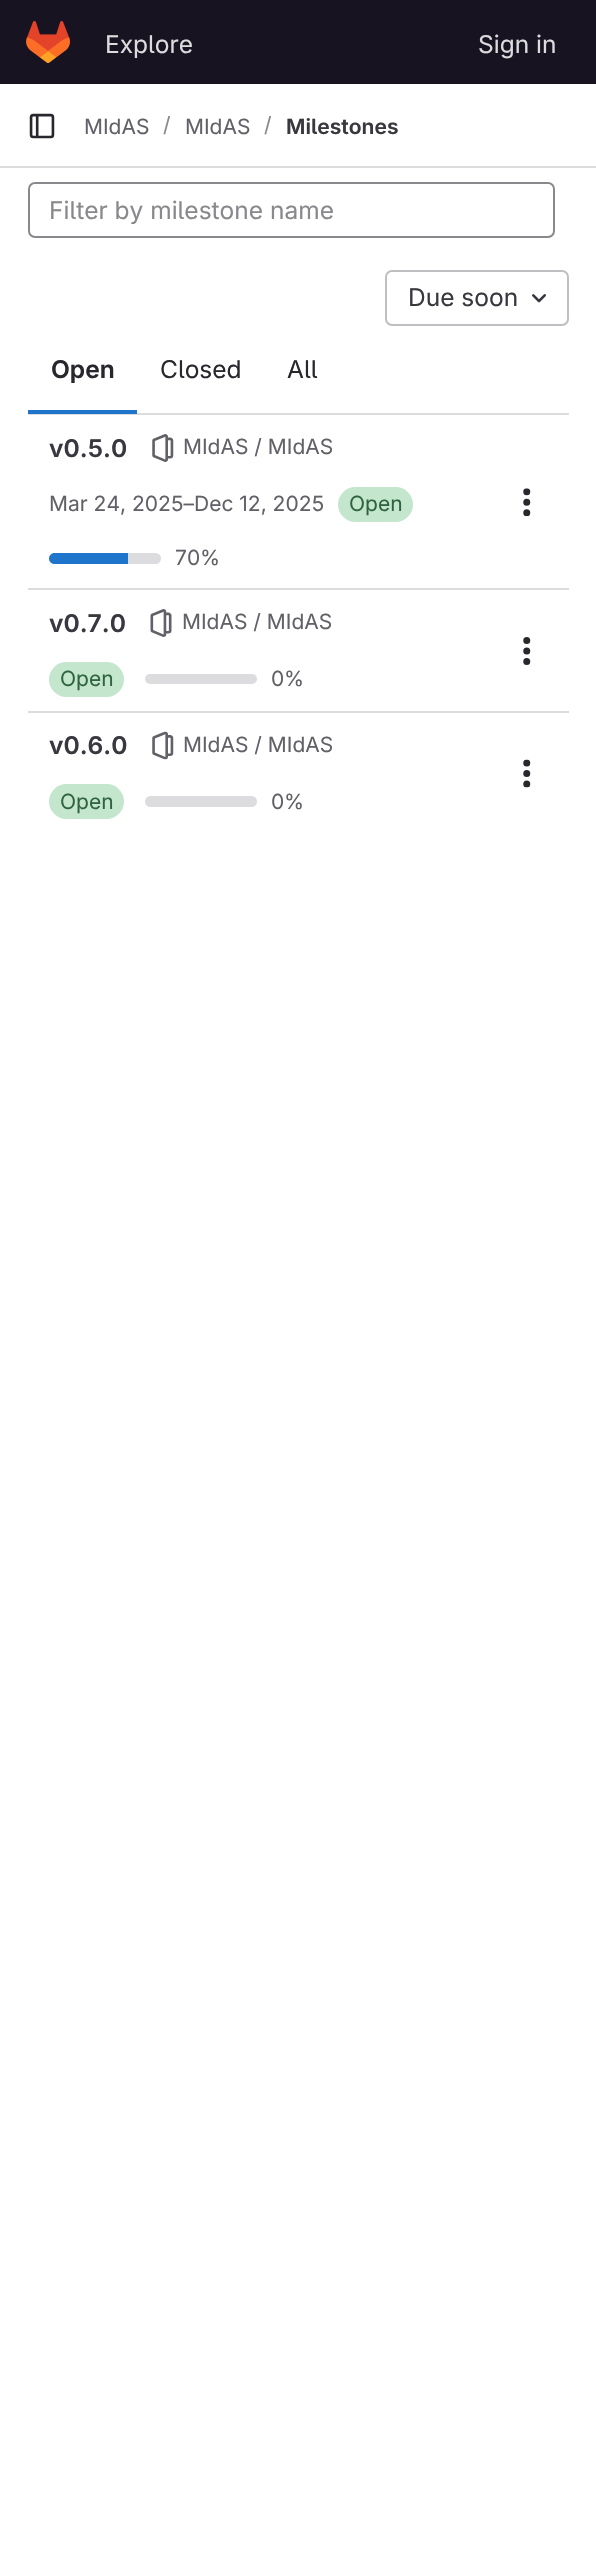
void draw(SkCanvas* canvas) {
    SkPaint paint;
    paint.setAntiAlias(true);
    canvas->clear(0xFFFFFFFF);
    paint.setColor(0xFF171321);
    canvas->drawRect(SkRect::MakeXYWH(0, 0, 596, 84), paint);
    canvas->drawImageRect(SkImages::DeferredFromEncodedData(SkData::MakeFromFileName("img1.png")), SkRect::MakeXYWH(26, 21, 44, 42), SkSamplingOptions());
    SkFont font1(fontMgr->matchFamilyStyle("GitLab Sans", SkFontStyle::Normal()), 24.5f);
    font1.setSubpixel(true);
    paint.setColor(0xFFDCDCDE);
    canvas->drawString("Explore", 105, 53, font1, paint);
    canvas->drawString("Sign in", 478, 53, font1, paint);
    canvas->drawRect(SkRect::MakeXYWH(0, 166, 596, 2), paint);
    canvas->drawImageRect(SkImages::DeferredFromEncodedData(SkData::MakeFromFileName("img2.png")), SkRect::MakeXYWH(29, 113, 26, 26), SkSamplingOptions());
    SkFont font2(fontMgr->matchFamilyStyle("GitLab Sans", SkFontStyle::Normal()), 21);
    font2.setSubpixel(true);
    paint.setColor(0xFF626168);
    canvas->drawString("MIdAS", 84, 134, font2, paint);
    paint.setColor(0xFF89888D);
    canvas->drawString("/", 163, 132, font2, paint);
    paint.setColor(0xFF626168);
    canvas->drawString("MIdAS", 185, 134, font2, paint);
    paint.setColor(0xFF89888D);
    canvas->drawString("/", 264, 132, font2, paint);
    SkFont font3(fontMgr->matchFamilyStyle("GitLab Sans", SkFontStyle(600, SkFontStyle::kNormal_Width, SkFontStyle::kUpright_Slant)), 21);
    font3.setSubpixel(true);
    paint.setColor(0xFF3A383F);
    canvas->drawString("Milestones", 286, 134, font3, paint);
    paint.setColor(0xFFDCDCDE);
    canvas->drawRect(SkRect::MakeXYWH(28, 413, 541, 2), paint);
    paint.setStyle(SkPaint::kStroke_Style);
    paint.setStrokeWidth(2);
    paint.setColor(0xFF89888D);
    canvas->drawRoundRect(SkRect::MakeXYWH(29, 183, 525, 54), 6, 6, paint);
    paint.setStyle(SkPaint::kFill_Style);
    canvas->drawString("Filter by milestone name", 49, 219, font1, paint);
    paint.setStyle(SkPaint::kStroke_Style);
    paint.setColor(0xFFBFBFC3);
    canvas->drawRoundRect(SkRect::MakeXYWH(386, 271, 182, 54), 6, 6, paint);
    paint.setStyle(SkPaint::kFill_Style);
    paint.setColor(0xFF3A383F);
    canvas->drawString("Due soon", 408, 306, font1, paint);
    canvas->drawImageRect(SkImages::DeferredFromEncodedData(SkData::MakeFromFileName("img3.png")), SkRect::MakeXYWH(532, 294, 14, 9), SkSamplingOptions());
    SkFont font4(fontMgr->matchFamilyStyle("GitLab Sans", SkFontStyle(600, SkFontStyle::kNormal_Width, SkFontStyle::kUpright_Slant)), 24.5f);
    font4.setSubpixel(true);
    paint.setColor(0xFF28272D);
    canvas->drawString("Open", 51, 378, font4, paint);
    paint.setColor(0xFF1F75CB);
    canvas->drawRect(SkRect::MakeXYWH(28, 410, 109, 4), paint);
    paint.setColor(0xFF28272D);
    canvas->drawString("Closed", 160, 378, font1, paint);
    canvas->drawString("All", 287, 378, font1, paint);
    paint.setColor(0xFFDCDCDE);
    canvas->drawRect(SkRect::MakeXYWH(28, 588, 541, 2), paint);
    paint.setColor(0xFF3A383F);
    canvas->drawString("v0.5.0", 49, 457, font4, paint);
    canvas->drawImageRect(SkImages::DeferredFromEncodedData(SkData::MakeFromFileName("img4.png")), SkRect::MakeXYWH(152, 434, 22, 28), SkSamplingOptions());
    paint.setColor(0xFF626168);
    canvas->drawString("MIdAS / MIdAS", 183, 454, font2, paint);
    canvas->drawString("Mar 24, 2025–Dec 12, 2025", 49, 511, font2, paint);
    paint.setColor(0xFFC3E6CD);
    canvas->drawRoundRect(SkRect::MakeXYWH(338, 487, 75, 35), 17.5f, 17.5f, paint);
    paint.setColor(0xFF306440);
    canvas->drawString("Open", 349, 511, font2, paint);
    paint.setColor(0xFFDCDCDE);
    canvas->drawRoundRect(SkRect::MakeXYWH(49, 553, 112, 11), 5.5f, 5.5f, paint);
    paint.setColor(0xFF1F75CB);
    canvas->drawPath(SkPathBuilder().moveTo(54.5f, 553).lineTo(128, 553).lineTo(128, 564).lineTo(54.5f, 564).cubicTo(51.5f, 564, 49, 561.5f, 49, 558.5f).cubicTo(49, 555.5f, 51.5f, 553, 54.5f, 553).close().detach(), paint);
    paint.setColor(0xFF626168);
    canvas->drawString("70%", 175, 565, font2, paint);
    canvas->drawImageRect(SkImages::DeferredFromEncodedData(SkData::MakeFromFileName("img5.png")), SkRect::MakeXYWH(523, 488, 8, 29), SkSamplingOptions());
    paint.setColor(0xFFDCDCDE);
    canvas->drawRect(SkRect::MakeXYWH(28, 711, 541, 2), paint);
    paint.setColor(0xFF3A383F);
    canvas->drawString("v0.7.0", 49, 632, font4, paint);
    canvas->drawImageRect(SkImages::DeferredFromEncodedData(SkData::MakeFromFileName("img6.png")), SkRect::MakeXYWH(150, 609, 22, 28), SkSamplingOptions());
    paint.setColor(0xFF626168);
    canvas->drawString("MIdAS / MIdAS", 182, 629, font2, paint);
    paint.setColor(0xFFC3E6CD);
    canvas->drawRoundRect(SkRect::MakeXYWH(49, 662, 75, 35), 17.5f, 17.5f, paint);
    paint.setColor(0xFF306440);
    canvas->drawString("Open", 60, 686, font2, paint);
    paint.setColor(0xFFDCDCDE);
    canvas->drawRoundRect(SkRect::MakeXYWH(145, 674, 112, 10), 5, 5, paint);
    paint.setColor(0xFF626168);
    canvas->drawString("0%", 271, 686, font2, paint);
    canvas->drawImageRect(SkImages::DeferredFromEncodedData(SkData::MakeFromFileName("img7.png")), SkRect::MakeXYWH(523, 637, 8, 28), SkSamplingOptions());
    paint.setColor(0xFF3A383F);
    canvas->drawString("v0.6.0", 49, 754, font4, paint);
    canvas->drawImageRect(SkImages::DeferredFromEncodedData(SkData::MakeFromFileName("img8.png")), SkRect::MakeXYWH(152, 731, 22, 29), SkSamplingOptions());
    paint.setColor(0xFF626168);
    canvas->drawString("MIdAS / MIdAS", 183, 752, font2, paint);
    paint.setColor(0xFFC3E6CD);
    canvas->drawRoundRect(SkRect::MakeXYWH(49, 784, 75, 35), 17.5f, 17.5f, paint);
    paint.setColor(0xFF306440);
    canvas->drawString("Open", 60, 809, font2, paint);
    paint.setColor(0xFFDCDCDE);
    canvas->drawRoundRect(SkRect::MakeXYWH(145, 796, 112, 11), 5.5f, 5.5f, paint);
    paint.setColor(0xFF626168);
    canvas->drawString("0%", 271, 809, font2, paint);
    canvas->drawImageRect(SkImages::DeferredFromEncodedData(SkData::MakeFromFileName("img9.png")), SkRect::MakeXYWH(523, 759, 8, 29), SkSamplingOptions());
}
